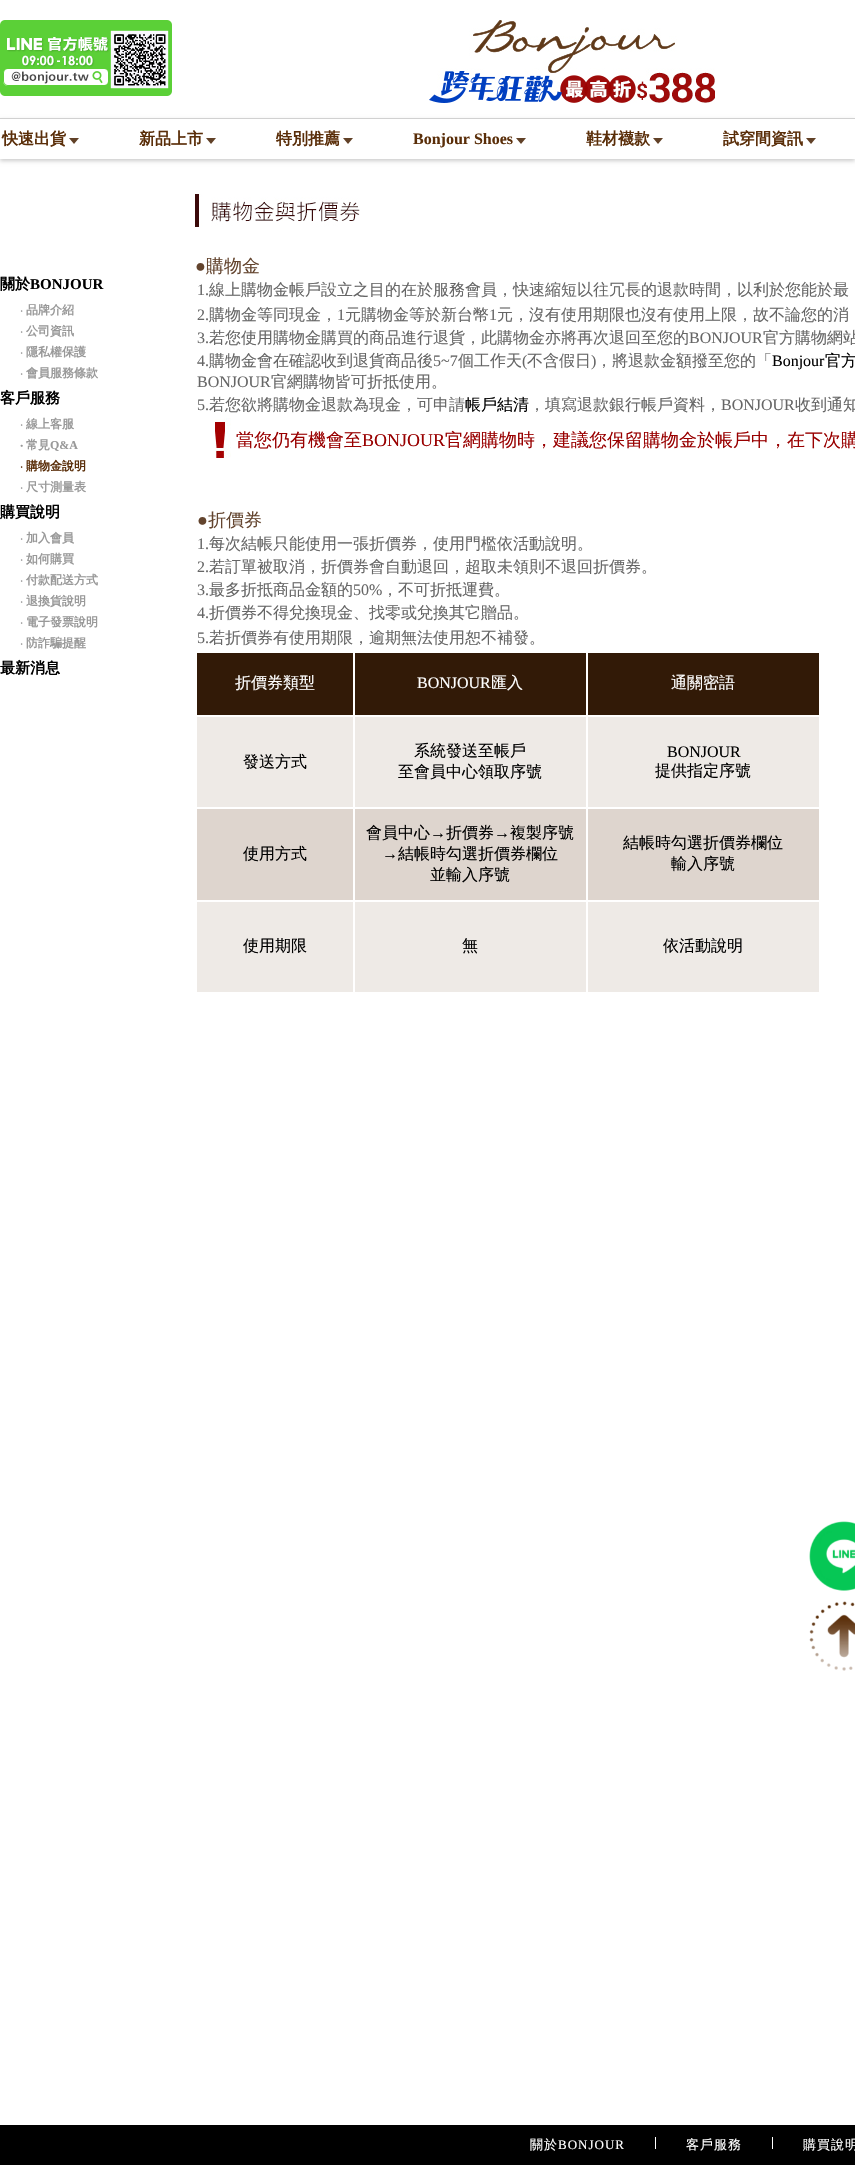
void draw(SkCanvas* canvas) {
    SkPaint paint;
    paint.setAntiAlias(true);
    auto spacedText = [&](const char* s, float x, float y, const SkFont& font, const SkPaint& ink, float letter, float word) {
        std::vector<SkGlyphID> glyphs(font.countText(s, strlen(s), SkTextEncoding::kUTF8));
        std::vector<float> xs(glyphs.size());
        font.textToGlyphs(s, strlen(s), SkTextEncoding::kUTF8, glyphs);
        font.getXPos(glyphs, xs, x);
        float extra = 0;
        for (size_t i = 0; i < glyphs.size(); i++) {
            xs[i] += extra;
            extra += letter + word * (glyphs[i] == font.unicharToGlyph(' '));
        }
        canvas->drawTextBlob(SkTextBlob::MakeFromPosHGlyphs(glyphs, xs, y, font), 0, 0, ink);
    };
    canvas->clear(0xFFFFFFFF);
    canvas->drawImageRect(SkImages::DeferredFromEncodedData(SkData::MakeFromFileName("img1.png")), SkRect::MakeXYWH(0, 20, 172, 76), SkSamplingOptions());
    canvas->drawImageRect(SkImages::DeferredFromEncodedData(SkData::MakeFromFileName("img2.png")), SkRect::MakeXYWH(429, 20, 286, 83), SkSamplingOptions());
    canvas->save();
    canvas->clipPath(SkPathBuilder(SkPathFillType::kEvenOdd).moveTo(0, 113).lineTo(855, 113).lineTo(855, 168).lineTo(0, 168).close().moveTo(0, 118).lineTo(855, 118).lineTo(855, 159).lineTo(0, 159).close().detach(), true);
    paint.setColor(0xFFCDCDCD);
    paint.setMaskFilter(SkMaskFilter::MakeBlur(kNormal_SkBlurStyle, 2));
    canvas->drawRect(SkRect::MakeXYWH(0, 120, 855, 41), paint);
    paint.setMaskFilter(nullptr);
    canvas->restore();
    paint.setColor(0xFFD1D1D1);
    canvas->drawRect(SkRect::MakeXYWH(0, 118, 855, 1), paint);
    SkFont font1(fontMgr->matchFamilyStyle("WenQuanYi Zen Hei", SkFontStyle::Bold()), 16);
    font1.setSubpixel(true);
    paint.setColor(0xFF5A2E09);
    canvas->drawString("快速出貨", 2, 144, font1, paint);
    canvas->drawImageRect(SkImages::DeferredFromEncodedData(SkData::MakeFromFileName("img3.png")), SkRect::MakeXYWH(69, 138, 10, 6), SkSamplingOptions());
    canvas->drawString("新品上市", 139, 144, font1, paint);
    canvas->drawImageRect(SkImages::DeferredFromEncodedData(SkData::MakeFromFileName("img3.png")), SkRect::MakeXYWH(206, 138, 10, 6), SkSamplingOptions());
    canvas->drawString("特別推薦", 276, 144, font1, paint);
    canvas->drawImageRect(SkImages::DeferredFromEncodedData(SkData::MakeFromFileName("img3.png")), SkRect::MakeXYWH(343, 138, 10, 6), SkSamplingOptions());
    SkFont font2(fontMgr->matchFamilyStyle("Liberation Serif", SkFontStyle::Bold()), 16);
    font2.setSubpixel(true);
    canvas->drawString("Bonjour Shoes", 413, 144, font2, paint);
    canvas->drawImageRect(SkImages::DeferredFromEncodedData(SkData::MakeFromFileName("img3.png")), SkRect::MakeXYWH(516, 138, 10, 6), SkSamplingOptions());
    canvas->drawString("鞋材襪款", 586, 144, font1, paint);
    canvas->drawImageRect(SkImages::DeferredFromEncodedData(SkData::MakeFromFileName("img3.png")), SkRect::MakeXYWH(653, 138, 10, 6), SkSamplingOptions());
    canvas->drawString("試穿間資訊", 723, 144, font1, paint);
    canvas->drawImageRect(SkImages::DeferredFromEncodedData(SkData::MakeFromFileName("img3.png")), SkRect::MakeXYWH(806, 138, 10, 6), SkSamplingOptions());
    SkFont font3(fontMgr->matchFamilyStyle("WenQuanYi Zen Hei", SkFontStyle::Bold()), 15);
    font3.setSubpixel(true);
    paint.setColor(0xFF000000);
    canvas->drawString("關於", 0, 289, font3, paint);
    SkFont font4(fontMgr->matchFamilyStyle("Liberation Serif", SkFontStyle::Bold()), 15);
    font4.setSubpixel(true);
    canvas->drawString("BONJOUR", 30, 289, font4, paint);
    SkFont font5(fontMgr->matchFamilyStyle("Noto Sans", SkFontStyle::Normal()), 12);
    font5.setSubpixel(true);
    paint.setColor(0xFF999999);
    canvas->drawString("‧", 20, 314, font5, paint);
    SkFont font6(fontMgr->matchFamilyStyle("WenQuanYi Zen Hei", SkFontStyle::Bold()), 12);
    font6.setSubpixel(true);
    canvas->drawString("品牌介紹", 26, 314, font6, paint);
    canvas->drawString("‧", 20, 335, font5, paint);
    canvas->drawString("公司資訊", 26, 335, font6, paint);
    canvas->drawString("‧", 20, 356, font5, paint);
    canvas->drawString("隱私權保護", 26, 356, font6, paint);
    canvas->drawString("‧", 20, 377, font5, paint);
    canvas->drawString("會員服務條款", 26, 377, font6, paint);
    paint.setColor(0xFF000000);
    canvas->drawString("客戶服務", 0, 403, font3, paint);
    paint.setColor(0xFF999999);
    canvas->drawString("‧", 20, 428, font5, paint);
    canvas->drawString("線上客服", 26, 428, font6, paint);
    SkFont font7(fontMgr->matchFamilyStyle("Noto Sans", SkFontStyle::Bold()), 12);
    font7.setSubpixel(true);
    canvas->drawString("‧", 20, 449, font7, paint);
    canvas->drawString("常見", 26, 449, font6, paint);
    SkFont font8(fontMgr->matchFamilyStyle("Liberation Serif", SkFontStyle::Bold()), 12);
    font8.setSubpixel(true);
    canvas->drawString("Q&A", 50, 449, font8, paint);
    paint.setColor(0xFF5A2E09);
    canvas->drawString("‧", 20, 470, font5, paint);
    canvas->drawString("購物金說明", 26, 470, font6, paint);
    paint.setColor(0xFF999999);
    canvas->drawString("‧", 20, 491, font5, paint);
    canvas->drawString("尺寸測量表", 26, 491, font6, paint);
    paint.setColor(0xFF000000);
    canvas->drawString("購買說明", 0, 517, font3, paint);
    paint.setColor(0xFF999999);
    canvas->drawString("‧", 20, 542, font5, paint);
    canvas->drawString("加入會員", 26, 542, font6, paint);
    canvas->drawString("‧", 20, 563, font5, paint);
    canvas->drawString("如何購買", 26, 563, font6, paint);
    canvas->drawString("‧", 20, 584, font5, paint);
    canvas->drawString("付款配送方式", 26, 584, font6, paint);
    canvas->drawString("‧", 20, 605, font5, paint);
    canvas->drawString("退換貨說明", 26, 605, font6, paint);
    canvas->drawString("‧", 20, 626, font5, paint);
    canvas->drawString("電子發票說明", 26, 626, font6, paint);
    canvas->drawString("‧", 20, 647, font5, paint);
    canvas->drawString("防詐騙提醒", 26, 647, font6, paint);
    paint.setColor(0xFF000000);
    canvas->drawString("最新消息", 0, 673, font3, paint);
    canvas->drawImageRect(SkImages::DeferredFromEncodedData(SkData::MakeFromFileName("img4.png")), SkRect::MakeXYWH(195, 194, 165, 33), SkSamplingOptions());
    SkFont font9(fontMgr->matchFamilyStyle("Liberation Serif", SkFontStyle::Normal()), 18);
    font9.setSubpixel(true);
    paint.setColor(0xFF63442E);
    canvas->drawString("●", 195, 272, font9, paint);
    SkFont font10(fontMgr->matchFamilyStyle("WenQuanYi Zen Hei", SkFontStyle(500, SkFontStyle::kNormal_Width, SkFontStyle::kUpright_Slant)), 18);
    font10.setSubpixel(true);
    canvas->drawString("購物金", 206, 272, font10, paint);
    SkFont font11(fontMgr->matchFamilyStyle("Liberation Serif", SkFontStyle::Normal()), 16);
    font11.setSubpixel(true);
    paint.setColor(0xFF666666);
    canvas->drawString("1.", 197, 295, font11, paint);
    SkFont font12(fontMgr->matchFamilyStyle("WenQuanYi Zen Hei", SkFontStyle(500, SkFontStyle::kNormal_Width, SkFontStyle::kUpright_Slant)), 16);
    font12.setSubpixel(true);
    canvas->drawString("線上購物金帳戶設立之目的在於服務會員，快速縮短以往冗長的退款時間，以利於您能於最", 209, 295, font12, paint);
    canvas->drawString("2.", 197, 320, font11, paint);
    canvas->drawString("購物金等同現金，", 209, 320, font12, paint);
    canvas->drawString("1", 337, 320, font11, paint);
    canvas->drawString("元購物金等於新台幣", 345, 320, font12, paint);
    canvas->drawString("1", 489, 320, font11, paint);
    canvas->drawString("元，沒有使用期限也沒有使用上限，故不論您的消", 497, 320, font12, paint);
    canvas->drawString("3.", 197, 343, font11, paint);
    canvas->drawString("若您使用購物金購買的商品進行退貨，此購物金亦將再次退回至您的", 209, 343, font12, paint);
    canvas->drawString("BONJOUR", 689, 343, font11, paint);
    canvas->drawString("官方購物網站", 763, 343, font12, paint);
    canvas->drawString("4.", 197, 366, font11, paint);
    canvas->drawString("購物金會在確認收到退貨商品後", 209, 366, font12, paint);
    canvas->drawString("5~7", 433, 366, font11, paint);
    canvas->drawString("個工作天", 458, 366, font12, paint);
    canvas->drawString("(", 522, 366, font11, paint);
    canvas->drawString("不含假日", 527, 366, font12, paint);
    canvas->drawString(")", 591, 366, font11, paint);
    canvas->drawString("，將退款金額撥至您的「", 596, 366, font12, paint);
    paint.setColor(0xFF000000);
    canvas->drawString("Bonjour", 772, 366, font11, paint);
    canvas->drawString("官方", 825, 366, font12, paint);
    paint.setColor(0xFF666666);
    canvas->drawString("BONJOUR", 197, 387, font11, paint);
    canvas->drawString("官網購物皆可折抵使用。", 271, 387, font12, paint);
    canvas->drawString("5.", 197, 410, font11, paint);
    canvas->drawString("若您欲將購物金退款為現金，可申請", 209, 410, font12, paint);
    paint.setColor(0xFF000000);
    canvas->drawString("帳戶結清", 465, 410, font12, paint);
    paint.setColor(0xFF666666);
    canvas->drawString("，填寫退款銀行帳戶資料，", 529, 410, font12, paint);
    canvas->drawString("BONJOUR", 721, 410, font11, paint);
    canvas->drawString("收到通知", 795, 410, font12, paint);
    canvas->drawImageRect(SkImages::DeferredFromEncodedData(SkData::MakeFromFileName("img5.png")), SkRect::MakeXYWH(215, 418, 16, 40), SkSamplingOptions());
    paint.setColor(0xFF990000);
    canvas->drawString("當您仍有機會至", 236, 446, font10, paint);
    canvas->drawString("BONJOUR", 362, 446, font9, paint);
    canvas->drawString("官網購物時，建議您保留購物金於帳戶中，在下次購", 445, 446, font10, paint);
    paint.setColor(0xFF63442E);
    canvas->drawString("●", 197, 526, font9, paint);
    canvas->drawString("折價券", 208, 526, font10, paint);
    paint.setColor(0xFF666666);
    canvas->drawString("1.", 197, 549, font11, paint);
    canvas->drawString("每次結帳只能使用一張折價券，使用門檻依活動說明。", 209, 549, font12, paint);
    canvas->drawString("2.", 197, 572, font11, paint);
    canvas->drawString("若訂單被取消，折價券會自動退回，超取未領則不退回折價券。", 209, 572, font12, paint);
    canvas->drawString("3.", 197, 595, font11, paint);
    canvas->drawString("最多折抵商品金額的", 209, 595, font12, paint);
    canvas->drawString("50%", 353, 595, font11, paint);
    canvas->drawString("，不可折抵運費。", 382, 595, font12, paint);
    canvas->drawString("4.", 197, 618, font11, paint);
    canvas->drawString("折價券不得兌換現金、找零或兌換其它贈品。", 209, 618, font12, paint);
    canvas->drawString("5.", 197, 643, font11, paint);
    canvas->drawString("若折價券有使用期限，逾期無法使用恕不補發。", 209, 643, font12, paint);
    paint.setColor(0xFF321A07);
    canvas->drawRect(SkRect::MakeXYWH(197, 653, 156, 62), paint);
    paint.setColor(0xFFFFFFFF);
    canvas->drawString("折價券類型", 235, 688, font12, paint);
    paint.setColor(0xFF321A07);
    canvas->drawRect(SkRect::MakeXYWH(355, 653, 231, 62), paint);
    paint.setColor(0xFFFFFFFF);
    canvas->drawString("BONJOUR", 417, 688, font11, paint);
    canvas->drawString("匯入", 491, 688, font12, paint);
    paint.setColor(0xFF321A07);
    canvas->drawRect(SkRect::MakeXYWH(588, 653, 231, 62), paint);
    paint.setColor(0xFFFFFFFF);
    canvas->drawString("通關密語", 671, 688, font12, paint);
    paint.setColor(0xFFEEEAE6);
    canvas->drawRect(SkRect::MakeXYWH(197, 717, 156, 90), paint);
    paint.setColor(0xFF000000);
    canvas->drawString("發送方式", 243, 767, font12, paint);
    paint.setColor(0xFFEEEAE6);
    canvas->drawRect(SkRect::MakeXYWH(355, 717, 231, 90), paint);
    paint.setColor(0xFF000000);
    canvas->drawString("系統發送至帳戶", 414, 756, font12, paint);
    canvas->drawString("至會員中心領取序號", 398, 777, font12, paint);
    paint.setColor(0xFFEEEAE6);
    canvas->drawRect(SkRect::MakeXYWH(588, 717, 231, 90), paint);
    paint.setColor(0xFF000000);
    canvas->drawString("BONJOUR", 667, 757, font11, paint);
    canvas->drawString("提供指定序號", 655, 776, font12, paint);
    paint.setColor(0xFFDED5CE);
    canvas->drawRect(SkRect::MakeXYWH(197, 809, 156, 91), paint);
    paint.setColor(0xFF000000);
    canvas->drawString("使用方式", 243, 859, font12, paint);
    paint.setColor(0xFFDED5CE);
    canvas->drawRect(SkRect::MakeXYWH(355, 809, 231, 91), paint);
    paint.setColor(0xFF000000);
    canvas->drawString("會員中心", 366, 838, font12, paint);
    canvas->drawString("→", 430, 838, font11, paint);
    canvas->drawString("折價券", 446, 838, font12, paint);
    canvas->drawString("→", 494, 838, font11, paint);
    canvas->drawString("複製序號", 510, 838, font12, paint);
    canvas->drawString("→", 382, 859, font11, paint);
    canvas->drawString("結帳時勾選折價券欄位", 398, 859, font12, paint);
    canvas->drawString("並輸入序號", 430, 880, font12, paint);
    paint.setColor(0xFFDED5CE);
    canvas->drawRect(SkRect::MakeXYWH(588, 809, 231, 91), paint);
    paint.setColor(0xFF000000);
    canvas->drawString("結帳時勾選折價券欄位", 623, 848, font12, paint);
    canvas->drawString("輸入序號", 671, 869, font12, paint);
    paint.setColor(0xFFEEEAE6);
    canvas->drawRect(SkRect::MakeXYWH(197, 902, 156, 90), paint);
    paint.setColor(0xFF000000);
    canvas->drawString("使用期限", 243, 951, font12, paint);
    paint.setColor(0xFFEEEAE6);
    canvas->drawRect(SkRect::MakeXYWH(355, 902, 231, 90), paint);
    paint.setColor(0xFF000000);
    canvas->drawString("無", 462, 951, font12, paint);
    paint.setColor(0xFFEEEAE6);
    canvas->drawRect(SkRect::MakeXYWH(588, 902, 231, 90), paint);
    paint.setColor(0xFF000000);
    canvas->drawString("依活動說明", 663, 951, font12, paint);
    canvas->drawImageRect(SkImages::DeferredFromEncodedData(SkData::MakeFromFileName("img6.png")), SkRect::MakeXYWH(809, 1521, 46, 70), SkSamplingOptions());
    canvas->drawImageRect(SkImages::DeferredFromEncodedData(SkData::MakeFromFileName("img7.png")), SkRect::MakeXYWH(809, 1601, 46, 70), SkSamplingOptions());
    canvas->drawRect(SkRect::MakeXYWH(0, 2125, 855, 40), paint);
    SkFont font13(fontMgr->matchFamilyStyle("WenQuanYi Zen Hei", SkFontStyle(500, SkFontStyle::kNormal_Width, SkFontStyle::kUpright_Slant)), 13);
    font13.setSubpixel(true);
    paint.setColor(0xFFFFFFFF);
    spacedText("關於", 530, 2149, font13, paint, 1, 0);
    SkFont font14(fontMgr->matchFamilyStyle("Liberation Serif", SkFontStyle::Normal()), 13);
    font14.setSubpixel(true);
    spacedText("BONJOUR", 558, 2149, font14, paint, 1, 0);
    canvas->drawRect(SkRect::MakeXYWH(655, 2137, 1, 12), paint);
    spacedText("客戶服務", 686, 2149, font13, paint, 1, 0);
    canvas->drawRect(SkRect::MakeXYWH(772, 2137, 1, 12), paint);
    spacedText("購買說明", 803, 2149, font13, paint, 1, 0);
}
